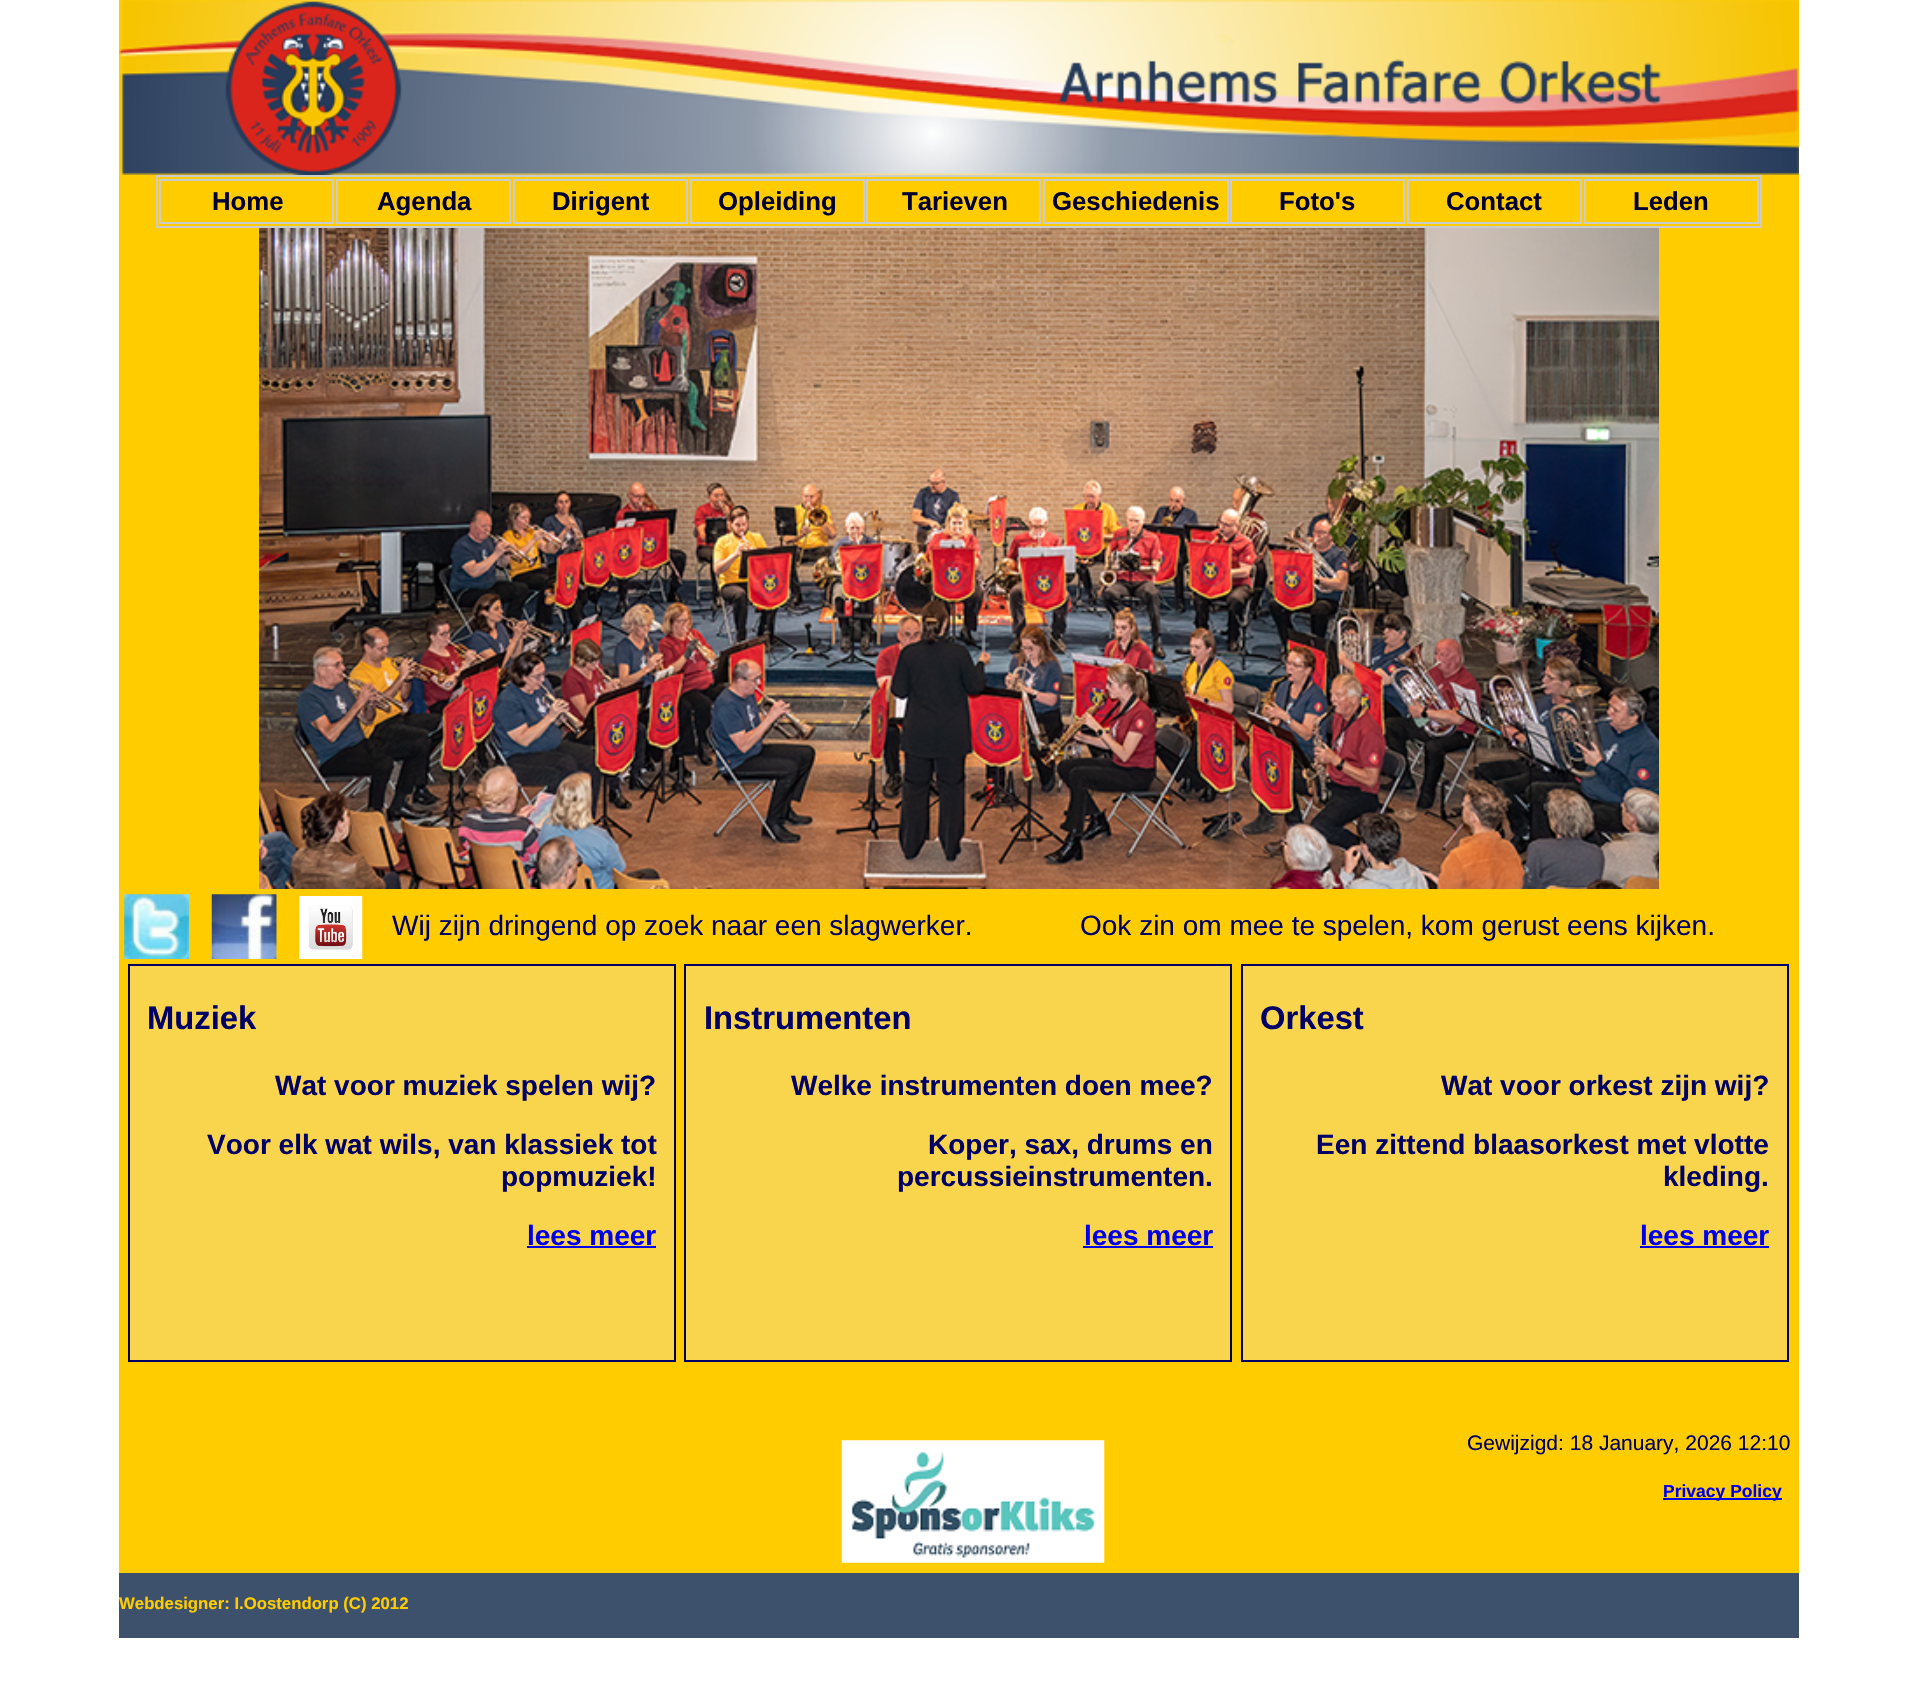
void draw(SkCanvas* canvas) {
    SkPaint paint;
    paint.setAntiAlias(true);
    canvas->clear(0xFFFFFFFF);
    paint.setColor(0xFFFFCC00);
    canvas->drawRect(SkRect::MakeXYWH(119, 0, 1680, 1573), paint);
    canvas->drawImageRect(SkImages::DeferredFromEncodedData(SkData::MakeFromFileName("img1.png")), SkRect::MakeXYWH(119, 0, 1680, 175), SkSamplingOptions());
    paint.setStyle(SkPaint::kStroke_Style);
    paint.setStrokeWidth(2);
    paint.setColor(0xFFCCCCCC);
    canvas->drawRect(SkRect::MakeXYWH(157, 176, 1604, 51), paint);
    canvas->drawRect(SkRect::MakeXYWH(160, 180, 173, 43), paint);
    SkFont font1(fontMgr->matchFamilyStyle("Liberation Sans", SkFontStyle::Bold()), 25.75f);
    font1.setSubpixel(true);
    paint.setStyle(SkPaint::kFill_Style);
    paint.setColor(0xFF000033);
    canvas->drawString("Home", 212, 210, font1, paint);
    paint.setStyle(SkPaint::kStroke_Style);
    paint.setColor(0xFFCCCCCC);
    canvas->drawRect(SkRect::MakeXYWH(337, 180, 173, 43), paint);
    paint.setStyle(SkPaint::kFill_Style);
    paint.setColor(0xFF000033);
    canvas->drawString("Agenda", 377, 210, font1, paint);
    paint.setStyle(SkPaint::kStroke_Style);
    paint.setColor(0xFFCCCCCC);
    canvas->drawRect(SkRect::MakeXYWH(514, 180, 173, 43), paint);
    paint.setStyle(SkPaint::kFill_Style);
    paint.setColor(0xFF000033);
    canvas->drawString("Dirigent", 552, 210, font1, paint);
    paint.setStyle(SkPaint::kStroke_Style);
    paint.setColor(0xFFCCCCCC);
    canvas->drawRect(SkRect::MakeXYWH(691, 180, 173, 43), paint);
    paint.setStyle(SkPaint::kFill_Style);
    paint.setColor(0xFF000033);
    canvas->drawString("Opleiding", 718, 210, font1, paint);
    paint.setStyle(SkPaint::kStroke_Style);
    paint.setColor(0xFFCCCCCC);
    canvas->drawRect(SkRect::MakeXYWH(867, 180, 173, 43), paint);
    paint.setStyle(SkPaint::kFill_Style);
    paint.setColor(0xFF000033);
    canvas->drawString("Tarieven", 902, 210, font1, paint);
    paint.setStyle(SkPaint::kStroke_Style);
    paint.setColor(0xFFCCCCCC);
    canvas->drawRect(SkRect::MakeXYWH(1044, 180, 184, 43), paint);
    paint.setStyle(SkPaint::kFill_Style);
    paint.setColor(0xFF000033);
    canvas->drawString("Geschiedenis", 1052, 210, font1, paint);
    paint.setStyle(SkPaint::kStroke_Style);
    paint.setColor(0xFFCCCCCC);
    canvas->drawRect(SkRect::MakeXYWH(1231, 180, 173, 43), paint);
    paint.setStyle(SkPaint::kFill_Style);
    paint.setColor(0xFF000033);
    canvas->drawString("Foto's", 1279, 210, font1, paint);
    paint.setStyle(SkPaint::kStroke_Style);
    paint.setColor(0xFFCCCCCC);
    canvas->drawRect(SkRect::MakeXYWH(1408, 180, 173, 43), paint);
    paint.setStyle(SkPaint::kFill_Style);
    paint.setColor(0xFF000033);
    canvas->drawString("Contact", 1446, 210, font1, paint);
    paint.setStyle(SkPaint::kStroke_Style);
    paint.setColor(0xFFCCCCCC);
    canvas->drawRect(SkRect::MakeXYWH(1585, 180, 173, 43), paint);
    paint.setStyle(SkPaint::kFill_Style);
    paint.setColor(0xFF000033);
    canvas->drawString("Leden", 1633, 210, font1, paint);
    canvas->drawImageRect(SkImages::DeferredFromEncodedData(SkData::MakeFromFileName("img2.png")), SkRect::MakeXYWH(259, 228, 1400, 661), SkSamplingOptions());
    canvas->drawImageRect(SkImages::DeferredFromEncodedData(SkData::MakeFromFileName("img3.png")), SkRect::MakeXYWH(124, 894, 65, 65), SkSamplingOptions());
    canvas->drawImageRect(SkImages::DeferredFromEncodedData(SkData::MakeFromFileName("img4.png")), SkRect::MakeXYWH(211, 894, 66, 65), SkSamplingOptions());
    canvas->drawImageRect(SkImages::DeferredFromEncodedData(SkData::MakeFromFileName("img5.png")), SkRect::MakeXYWH(299, 896, 64, 63), SkSamplingOptions());
    SkFont font2(fontMgr->matchFamilyStyle("Liberation Sans", SkFontStyle::Normal()), 28);
    font2.setSubpixel(true);
    paint.setColor(0xFF000066);
    canvas->drawString("Wij zijn dringend op zoek naar een slagwerker.", 392, 935, font2, paint);
    canvas->drawString("Ook zin om mee te spelen, kom gerust eens kijken.", 1080, 935, font2, paint);
    paint.setColor(0xFFF9D54E);
    canvas->drawRect(SkRect::MakeXYWH(129, 965, 546, 396), paint);
    paint.setStyle(SkPaint::kStroke_Style);
    paint.setColor(0xFF000066);
    canvas->drawRect(SkRect::MakeXYWH(129, 965, 546, 396), paint);
    SkFont font3(fontMgr->matchFamilyStyle("Liberation Sans", SkFontStyle::Bold()), 32.75f);
    font3.setSubpixel(true);
    paint.setStyle(SkPaint::kFill_Style);
    canvas->drawString("Muziek", 147, 1029, font3, paint);
    SkFont font4(fontMgr->matchFamilyStyle("Liberation Sans", SkFontStyle::Bold()), 28);
    font4.setSubpixel(true);
    canvas->drawString("Wat voor muziek spelen wij?", 275, 1095, font4, paint);
    canvas->drawString("Voor elk wat wils, van klassiek tot", 207, 1154, font4, paint);
    canvas->drawString("popmuziek!", 501, 1186, font4, paint);
    paint.setColor(0xFF0000EE);
    canvas->drawString("lees meer", 527, 1245, font4, paint);
    canvas->drawRect(SkRect::MakeXYWH(527, 1246, 129, 2), paint);
    paint.setColor(0xFFF9D54E);
    canvas->drawRect(SkRect::MakeXYWH(685, 965, 546, 396), paint);
    paint.setStyle(SkPaint::kStroke_Style);
    paint.setColor(0xFF000066);
    canvas->drawRect(SkRect::MakeXYWH(685, 965, 546, 396), paint);
    paint.setStyle(SkPaint::kFill_Style);
    canvas->drawString("Instrumenten", 704, 1029, font3, paint);
    canvas->drawString("Welke instrumenten doen mee?", 791, 1095, font4, paint);
    canvas->drawString("Koper, sax, drums en", 928, 1154, font4, paint);
    canvas->drawString("percussieinstrumenten.", 897, 1186, font4, paint);
    paint.setColor(0xFF0000EE);
    canvas->drawString("lees meer", 1084, 1245, font4, paint);
    canvas->drawRect(SkRect::MakeXYWH(1083, 1246, 130, 2), paint);
    paint.setColor(0xFFF9D54E);
    canvas->drawRect(SkRect::MakeXYWH(1242, 965, 546, 396), paint);
    paint.setStyle(SkPaint::kStroke_Style);
    paint.setColor(0xFF000066);
    canvas->drawRect(SkRect::MakeXYWH(1242, 965, 546, 396), paint);
    paint.setStyle(SkPaint::kFill_Style);
    canvas->drawString("Orkest", 1260, 1029, font3, paint);
    canvas->drawString("Wat voor orkest zijn wij?", 1441, 1095, font4, paint);
    canvas->drawString("Een zittend blaasorkest met vlotte", 1316, 1154, font4, paint);
    canvas->drawString("kleding.", 1663, 1186, font4, paint);
    paint.setColor(0xFF0000EE);
    canvas->drawString("lees meer", 1640, 1245, font4, paint);
    canvas->drawRect(SkRect::MakeXYWH(1640, 1246, 129, 2), paint);
    canvas->drawImageRect(SkImages::DeferredFromEncodedData(SkData::MakeFromFileName("img6.png")), SkRect::MakeXYWH(841, 1440, 264, 123), SkSamplingOptions());
    SkFont font5(fontMgr->matchFamilyStyle("Liberation Sans", SkFontStyle::Normal()), 21);
    font5.setSubpixel(true);
    paint.setColor(0xFF000066);
    canvas->drawString("Gewijzigd: 18 January, 2026 12:10", 1467, 1450, font5, paint);
    paint.setColor(0xFF0000EE);
    canvas->drawRect(SkRect::MakeXYWH(1663, 1498, 119, 2), paint);
    SkFont font6(fontMgr->matchFamilyStyle("Liberation Sans", SkFontStyle::Bold()), 17.5f);
    font6.setSubpixel(true);
    canvas->drawString("Privacy Policy", 1663, 1497, font6, paint);
    paint.setColor(0xFF3E516C);
    canvas->drawRect(SkRect::MakeXYWH(119, 1573, 1680, 65), paint);
    SkFont font7(fontMgr->matchFamilyStyle("Liberation Sans", SkFontStyle::Bold()), 16.75f);
    font7.setSubpixel(true);
    paint.setColor(0xFFFFCC00);
    canvas->drawString("Webdesigner: I.Oostendorp (C) 2012", 119, 1609, font7, paint);
}
